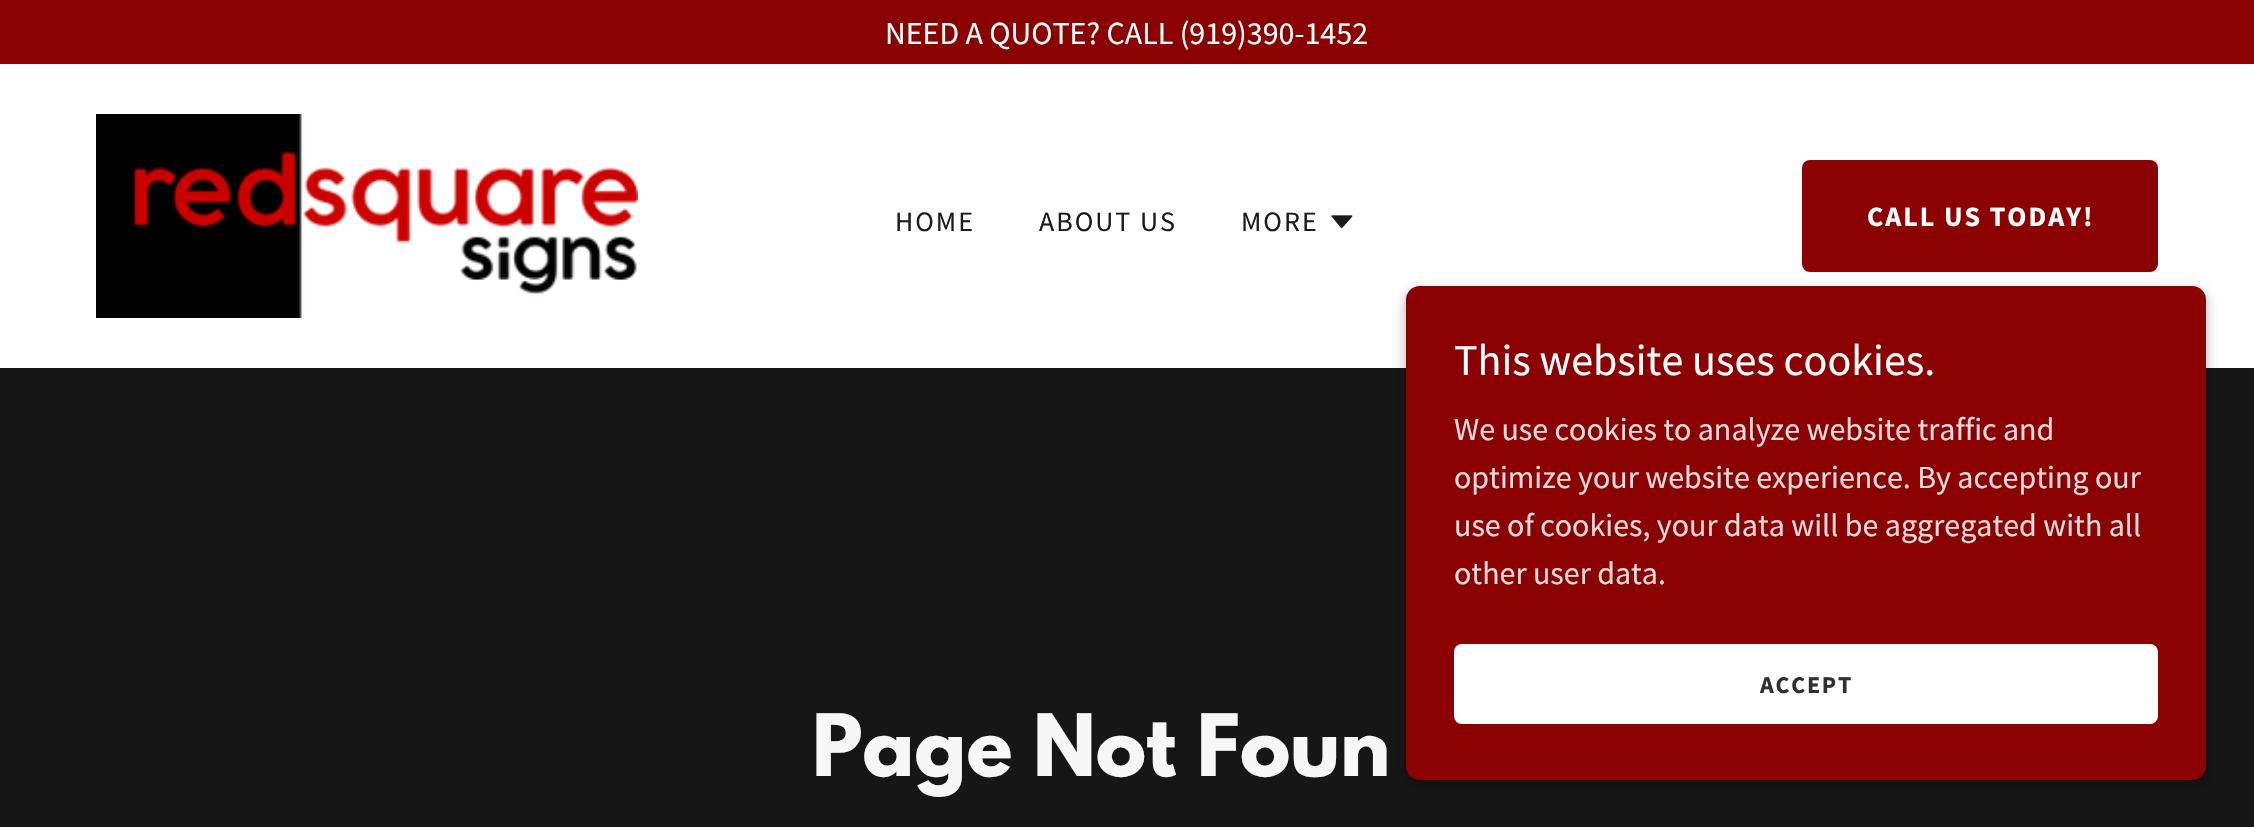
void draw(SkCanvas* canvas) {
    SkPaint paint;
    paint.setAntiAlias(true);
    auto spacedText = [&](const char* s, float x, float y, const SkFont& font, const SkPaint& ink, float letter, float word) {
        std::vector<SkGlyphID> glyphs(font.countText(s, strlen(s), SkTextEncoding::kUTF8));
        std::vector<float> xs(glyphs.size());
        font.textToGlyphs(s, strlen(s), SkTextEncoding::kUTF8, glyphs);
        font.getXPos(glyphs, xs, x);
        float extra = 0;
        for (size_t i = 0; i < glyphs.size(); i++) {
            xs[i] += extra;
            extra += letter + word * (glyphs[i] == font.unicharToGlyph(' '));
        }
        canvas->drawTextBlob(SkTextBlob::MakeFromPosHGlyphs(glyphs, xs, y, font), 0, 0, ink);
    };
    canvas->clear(0xFF161616);
    paint.setColor(0xFFFFFFFF);
    canvas->drawRect(SkRect::MakeXYWH(0, 64, 2254, 304), paint);
    paint.setColor(0xFF8B0000);
    canvas->drawRect(SkRect::MakeXYWH(0, 0, 2254, 64), paint);
    SkFont font1(fontMgr->matchFamilyStyle("Source Sans Pro", SkFontStyle::Normal()), 32);
    font1.setSubpixel(true);
    paint.setColor(0xFFFFFFFF);
    canvas->drawString("NEED A QUOTE? CALL (919)390-1452", 885, 44, font1, paint);
    canvas->drawImageRect(SkImages::DeferredFromEncodedData(SkData::MakeFromFileName("img1.png")), SkRect::MakeXYWH(96, 114, 542, 204), SkSamplingOptions());
    SkFont font2(fontMgr->matchFamilyStyle("Source Sans Pro", SkFontStyle::Normal()), 28);
    font2.setSubpixel(true);
    paint.setColor(0xFF1B1B1B);
    spacedText("HOME", 895, 231, font2, paint, 2, 0);
    spacedText("ABOUT US", 1039, 231, font2, paint, 2, 0);
    spacedText("MORE", 1241, 231, font2, paint, 2, 0);
    canvas->drawImageRect(SkImages::DeferredFromEncodedData(SkData::MakeFromFileName("img2.png")), SkRect::MakeXYWH(1331, 215, 22, 14), SkSamplingOptions());
    paint.setColor(0xFF8B0000);
    canvas->drawRoundRect(SkRect::MakeXYWH(1802, 160, 356, 112), 8, 8, paint);
    SkFont font3(fontMgr->matchFamilyStyle("Source Sans Pro", SkFontStyle::Bold()), 28);
    font3.setSubpixel(true);
    paint.setColor(0xFFFFFFFF);
    spacedText("CALL US TODAY!", 1867, 226, font3, paint, 2, 0);
    paint.setColor(0x4D000000);
    paint.setMaskFilter(SkMaskFilter::MakeBlur(kNormal_SkBlurStyle, 6));
    canvas->drawRoundRect(SkRect::MakeXYWH(1406, 290, 800, 494), 14, 14, paint);
    paint.setMaskFilter(nullptr);
    paint.setColor(0xFF8B0000);
    canvas->drawRoundRect(SkRect::MakeXYWH(1406, 286, 800, 494), 14, 14, paint);
    SkFont font4(fontMgr->matchFamilyStyle("Source Sans Pro", SkFontStyle::Normal()), 44);
    font4.setSubpixel(true);
    paint.setColor(0xFFFFFFFF);
    canvas->drawString("This website uses cookies.", 1454, 375, font4, paint);
    paint.setColor(0xFFE3DBDB);
    canvas->drawString("We use cookies to analyze website traffic and", 1454, 440, font1, paint);
    canvas->drawString("optimize your website experience. By accepting our", 1454, 488, font1, paint);
    canvas->drawString("use of cookies, your data will be aggregated with all", 1454, 536, font1, paint);
    canvas->drawString("other user data.", 1454, 584, font1, paint);
    paint.setColor(0xFFFFFFFF);
    canvas->drawRoundRect(SkRect::MakeXYWH(1454, 644, 704, 80), 8, 8, paint);
    SkFont font5(fontMgr->matchFamilyStyle("Source Sans Pro", SkFontStyle::Bold()), 24);
    font5.setSubpixel(true);
    paint.setColor(0xFF303030);
    spacedText("ACCEPT", 1760, 693, font5, paint, 1.75f, 0);
    SkFont font6(fontMgr->matchFamilyStyle("League Spartan", SkFontStyle::Bold()), 76);
    font6.setSubpixel(true);
    paint.setColor(0xFFF7F7F7);
    canvas->drawString("Page Not Foun", 812, 776, font6, paint);
}
